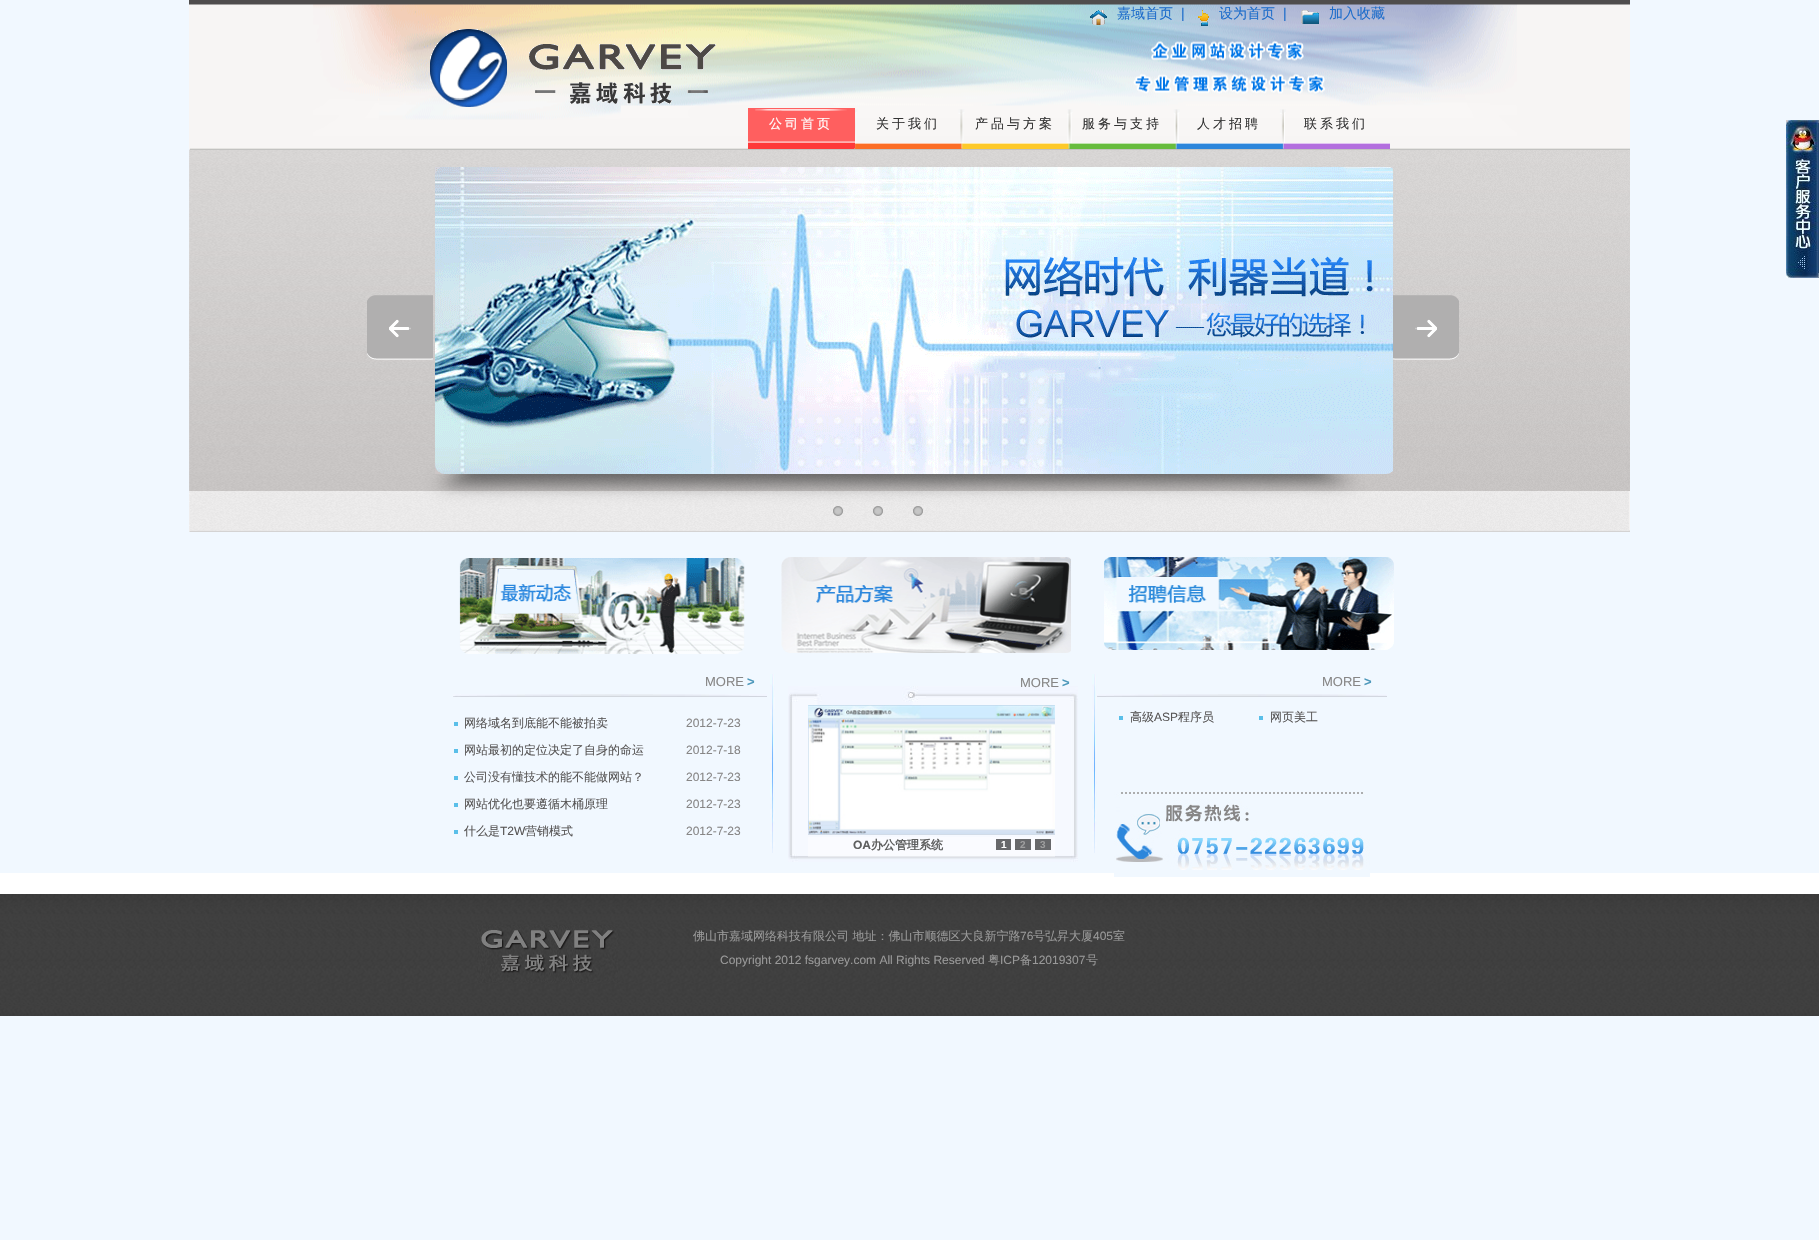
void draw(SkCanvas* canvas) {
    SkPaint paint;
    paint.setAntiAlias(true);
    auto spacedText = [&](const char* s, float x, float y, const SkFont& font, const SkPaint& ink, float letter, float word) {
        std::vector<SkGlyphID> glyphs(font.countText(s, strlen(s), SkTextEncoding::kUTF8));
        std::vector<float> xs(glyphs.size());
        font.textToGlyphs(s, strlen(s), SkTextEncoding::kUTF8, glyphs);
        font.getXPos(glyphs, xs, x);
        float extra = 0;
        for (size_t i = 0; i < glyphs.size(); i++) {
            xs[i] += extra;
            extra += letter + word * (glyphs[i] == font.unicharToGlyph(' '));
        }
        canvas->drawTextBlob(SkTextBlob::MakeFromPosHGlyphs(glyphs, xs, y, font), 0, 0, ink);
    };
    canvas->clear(0xFFF1F8FF);
    canvas->drawImageRect(SkImages::DeferredFromEncodedData(SkData::MakeFromFileName("img1.png")), SkRect::MakeXYWH(189, 0, 1441, 150), SkSamplingOptions());
    canvas->drawImageRect(SkImages::DeferredFromEncodedData(SkData::MakeFromFileName("img2.png")), SkRect::MakeXYWH(430, 29, 286, 78), SkSamplingOptions());
    canvas->drawImageRect(SkImages::DeferredFromEncodedData(SkData::MakeFromFileName("img3.png")), SkRect::MakeXYWH(1090, 10, 17, 15), SkSamplingOptions());
    SkFont font1(fontMgr->matchFamilyStyle("WenQuanYi Zen Hei", SkFontStyle(500, SkFontStyle::kNormal_Width, SkFontStyle::kUpright_Slant)), 14);
    font1.setSubpixel(true);
    paint.setColor(0xFF1E6DCB);
    canvas->drawString("嘉域首页", 1117, 18, font1, paint);
    SkFont font2(fontMgr->matchFamilyStyle("Liberation Sans", SkFontStyle::Normal()), 14);
    font2.setSubpixel(true);
    canvas->drawString("|", 1181, 18, font2, paint);
    canvas->drawImageRect(SkImages::DeferredFromEncodedData(SkData::MakeFromFileName("img4.png")), SkRect::MakeXYWH(1198, 10, 11, 16), SkSamplingOptions());
    canvas->drawString("设为首页", 1219, 18, font1, paint);
    canvas->drawString("|", 1283, 18, font2, paint);
    canvas->drawImageRect(SkImages::DeferredFromEncodedData(SkData::MakeFromFileName("img5.png")), SkRect::MakeXYWH(1301, 10, 18, 14), SkSamplingOptions());
    canvas->drawString("加入收藏", 1329, 18, font1, paint);
    canvas->drawImageRect(SkImages::DeferredFromEncodedData(SkData::MakeFromFileName("img6.png")), SkRect::MakeXYWH(748, 109, 642, 40), SkSamplingOptions());
    canvas->drawImageRect(SkImages::DeferredFromEncodedData(SkData::MakeFromFileName("img7.png")), SkRect::MakeXYWH(748, 108, 107, 40), SkSamplingOptions());
    SkFont font3(fontMgr->matchFamilyStyle("WenQuanYi Zen Hei", SkFontStyle(500, SkFontStyle::kNormal_Width, SkFontStyle::kUpright_Slant)), 13);
    font3.setSubpixel(true);
    paint.setColor(0xFFFFFFFF);
    spacedText("公司首页", 769, 128, font3, paint, 3, 0);
    paint.setColor(0xFF333333);
    spacedText("关于我们", 876, 128, font3, paint, 3, 0);
    spacedText("产品与方案", 975, 128, font3, paint, 3, 0);
    spacedText("服务与支持", 1082, 128, font3, paint, 3, 0);
    spacedText("人才招聘", 1197, 128, font3, paint, 3, 0);
    spacedText("联系我们", 1304, 128, font3, paint, 3, 0);
    canvas->drawImageRect(SkImages::DeferredFromEncodedData(SkData::MakeFromFileName("img8.png")), SkRect::MakeXYWH(1786, 120, 33, 158), SkSamplingOptions());
    canvas->drawImageRect(SkImages::DeferredFromEncodedData(SkData::MakeFromFileName("img9.png")), SkRect::MakeXYWH(0, 873, 1819, 21), SkSamplingOptions());
    canvas->drawImageRect(SkImages::DeferredFromEncodedData(SkData::MakeFromFileName("img10.png")), SkRect::MakeXYWH(189, 150, 1441, 382), SkSamplingOptions());
    canvas->drawImageRect(SkImages::DeferredFromEncodedData(SkData::MakeFromFileName("img11.png")), SkRect::MakeXYWH(367, 295, 66, 65), SkSamplingOptions());
    canvas->drawImageRect(SkImages::DeferredFromEncodedData(SkData::MakeFromFileName("img12.png")), SkRect::MakeXYWH(435, 167, 958, 307), SkSamplingOptions());
    canvas->drawImageRect(SkImages::DeferredFromEncodedData(SkData::MakeFromFileName("img13.png")), SkRect::MakeXYWH(833, 506, 10, 10), SkSamplingOptions());
    canvas->drawImageRect(SkImages::DeferredFromEncodedData(SkData::MakeFromFileName("img14.png")), SkRect::MakeXYWH(873, 506, 10, 10), SkSamplingOptions());
    canvas->drawImageRect(SkImages::DeferredFromEncodedData(SkData::MakeFromFileName("img15.png")), SkRect::MakeXYWH(913, 506, 10, 10), SkSamplingOptions());
    canvas->drawImageRect(SkImages::DeferredFromEncodedData(SkData::MakeFromFileName("img16.png")), SkRect::MakeXYWH(1393, 295, 66, 65), SkSamplingOptions());
    canvas->drawImageRect(SkImages::DeferredFromEncodedData(SkData::MakeFromFileName("img17.png")), SkRect::MakeXYWH(459, 558, 286, 96), SkSamplingOptions());
    canvas->drawImageRect(SkImages::DeferredFromEncodedData(SkData::MakeFromFileName("img18.png")), SkRect::MakeXYWH(781, 557, 290, 96), SkSamplingOptions());
    canvas->drawImageRect(SkImages::DeferredFromEncodedData(SkData::MakeFromFileName("img19.png")), SkRect::MakeXYWH(1104, 557, 290, 93), SkSamplingOptions());
    canvas->drawImageRect(SkImages::DeferredFromEncodedData(SkData::MakeFromFileName("img20.png")), SkRect::MakeXYWH(453, 694, 314, 3), SkSamplingOptions());
    SkFont font4(fontMgr->matchFamilyStyle("Liberation Sans", SkFontStyle::Normal()), 13);
    font4.setSubpixel(true);
    paint.setColor(0xFF878686);
    canvas->drawString("MORE", 705, 686, font4, paint);
    SkFont font5(fontMgr->matchFamilyStyle("Liberation Sans", SkFontStyle::Bold()), 13);
    font5.setSubpixel(true);
    paint.setColor(0xFF4D98BB);
    canvas->drawString(">", 747, 686, font5, paint);
    paint.setColor(0xFF5ABFE9);
    canvas->drawRect(SkRect::MakeXYWH(454, 722, 4, 4), paint);
    SkFont font6(fontMgr->matchFamilyStyle("WenQuanYi Zen Hei", SkFontStyle(500, SkFontStyle::kNormal_Width, SkFontStyle::kUpright_Slant)), 12);
    font6.setSubpixel(true);
    paint.setColor(0xFF575555);
    canvas->drawString("网络域名到底能不能被拍卖", 464, 727, font6, paint);
    SkFont font7(fontMgr->matchFamilyStyle("Liberation Sans", SkFontStyle::Normal()), 12);
    font7.setSubpixel(true);
    paint.setColor(0xFF878686);
    canvas->drawString("2012-7-23", 686, 727, font7, paint);
    paint.setColor(0xFF5ABFE9);
    canvas->drawRect(SkRect::MakeXYWH(454, 749, 4, 4), paint);
    paint.setColor(0xFF575555);
    canvas->drawString("网站最初的定位决定了自身的命运", 464, 754, font6, paint);
    paint.setColor(0xFF878686);
    canvas->drawString("2012-7-18", 686, 754, font7, paint);
    paint.setColor(0xFF5ABFE9);
    canvas->drawRect(SkRect::MakeXYWH(454, 776, 4, 4), paint);
    paint.setColor(0xFF575555);
    canvas->drawString("公司没有懂技术的能不能做网站？", 464, 781, font6, paint);
    paint.setColor(0xFF878686);
    canvas->drawString("2012-7-23", 686, 781, font7, paint);
    paint.setColor(0xFF5ABFE9);
    canvas->drawRect(SkRect::MakeXYWH(454, 803, 4, 4), paint);
    paint.setColor(0xFF575555);
    canvas->drawString("网站优化也要遵循木桶原理", 464, 808, font6, paint);
    paint.setColor(0xFF878686);
    canvas->drawString("2012-7-23", 686, 808, font7, paint);
    paint.setColor(0xFF5ABFE9);
    canvas->drawRect(SkRect::MakeXYWH(454, 830, 4, 4), paint);
    paint.setColor(0xFF575555);
    canvas->drawString("什么是", 464, 835, font6, paint);
    canvas->drawString("T2W", 500, 835, font7, paint);
    canvas->drawString("营销模式", 525, 835, font6, paint);
    paint.setColor(0xFF878686);
    canvas->drawString("2012-7-23", 686, 835, font7, paint);
    canvas->drawImageRect(SkImages::DeferredFromEncodedData(SkData::MakeFromFileName("img21.png")), SkRect::MakeXYWH(770, 674, 5, 179), SkSamplingOptions());
    canvas->drawImageRect(SkImages::DeferredFromEncodedData(SkData::MakeFromFileName("img22.png")), SkRect::MakeXYWH(788, 686, 290, 176), SkSamplingOptions());
    canvas->drawString("MORE", 1020, 687, font4, paint);
    paint.setColor(0xFF4D98BB);
    canvas->drawString(">", 1062, 687, font5, paint);
    canvas->drawImageRect(SkImages::DeferredFromEncodedData(SkData::MakeFromFileName("img23.png")), SkRect::MakeXYWH(808, 705, 247, 130), SkSamplingOptions());
    paint.setColor(0x66FFFFFF);
    canvas->drawRect(SkRect::MakeXYWH(808, 837, 247, 20), paint);
    SkFont font8(fontMgr->matchFamilyStyle("Liberation Sans", SkFontStyle::Bold()), 12);
    font8.setSubpixel(true);
    paint.setColor(0xFF5E5F5F);
    canvas->drawString("OA", 853, 849, font8, paint);
    SkFont font9(fontMgr->matchFamilyStyle("WenQuanYi Zen Hei", SkFontStyle::Bold()), 12);
    font9.setSubpixel(true);
    canvas->drawString("办公管理系统", 871, 849, font9, paint);
    paint.setColor(0xFF67686B);
    canvas->drawRect(SkRect::MakeXYWH(996, 839, 15, 11), paint);
    SkFont font10(fontMgr->matchFamilyStyle("Liberation Sans", SkFontStyle::Bold()), 10);
    font10.setSubpixel(true);
    paint.setColor(0xFFFFFFFF);
    canvas->drawString("1", 1001, 848, font10, paint);
    paint.setColor(0xFF67686B);
    canvas->drawRect(SkRect::MakeXYWH(1015, 839, 16, 11), paint);
    paint.setColor(0xFF9E9E9F);
    canvas->drawString("2", 1020, 848, font10, paint);
    paint.setColor(0xFF67686B);
    canvas->drawRect(SkRect::MakeXYWH(1035, 839, 16, 11), paint);
    paint.setColor(0xFF9E9E9F);
    canvas->drawString("3", 1040, 848, font10, paint);
    canvas->drawImageRect(SkImages::DeferredFromEncodedData(SkData::MakeFromFileName("img21.png")), SkRect::MakeXYWH(1092, 674, 5, 179), SkSamplingOptions());
    canvas->drawImageRect(SkImages::DeferredFromEncodedData(SkData::MakeFromFileName("img24.png")), SkRect::MakeXYWH(1097, 694, 290, 3), SkSamplingOptions());
    paint.setColor(0xFF878686);
    canvas->drawString("MORE", 1322, 686, font4, paint);
    paint.setColor(0xFF4D98BB);
    canvas->drawString(">", 1364, 686, font5, paint);
    paint.setColor(0xFF5ABFE9);
    canvas->drawRect(SkRect::MakeXYWH(1119, 716, 4, 4), paint);
    paint.setColor(0xFF575555);
    canvas->drawString("高级", 1130, 721, font6, paint);
    canvas->drawString("ASP", 1154, 721, font7, paint);
    canvas->drawString("程序员", 1178, 721, font6, paint);
    paint.setColor(0xFF5ABFE9);
    canvas->drawRect(SkRect::MakeXYWH(1259, 716, 4, 4), paint);
    paint.setColor(0xFF575555);
    canvas->drawString("网页美工", 1270, 721, font6, paint);
    canvas->drawImageRect(SkImages::DeferredFromEncodedData(SkData::MakeFromFileName("img25.png")), SkRect::MakeXYWH(1114, 792, 256, 85), SkSamplingOptions());
    canvas->drawImageRect(SkImages::DeferredFromEncodedData(SkData::MakeFromFileName("img26.png")), SkRect::MakeXYWH(0, 894, 1819, 122), SkSamplingOptions());
    canvas->drawImageRect(SkImages::DeferredFromEncodedData(SkData::MakeFromFileName("img27.png")), SkRect::MakeXYWH(477, 925, 141, 58), SkSamplingOptions());
    paint.setColor(0xFF999999);
    canvas->drawString("佛山市嘉域网络科技有限公司 地址：佛山市顺德区大良新宁路", 693, 940, font6, paint);
    canvas->drawString("76", 1020, 940, font7, paint);
    canvas->drawString("号弘昇大厦", 1033, 940, font6, paint);
    canvas->drawString("405", 1093, 940, font7, paint);
    canvas->drawString("室", 1113, 940, font6, paint);
    canvas->drawString("Copyright 2012 fsgarvey.com All Rights Reserved", 720, 964, font7, paint);
    canvas->drawString("粤", 988, 964, font6, paint);
    canvas->drawString("ICP", 1000, 964, font7, paint);
    canvas->drawString("备", 1020, 964, font6, paint);
    canvas->drawString("12019307", 1032, 964, font7, paint);
    canvas->drawString("号", 1086, 964, font6, paint);
}
